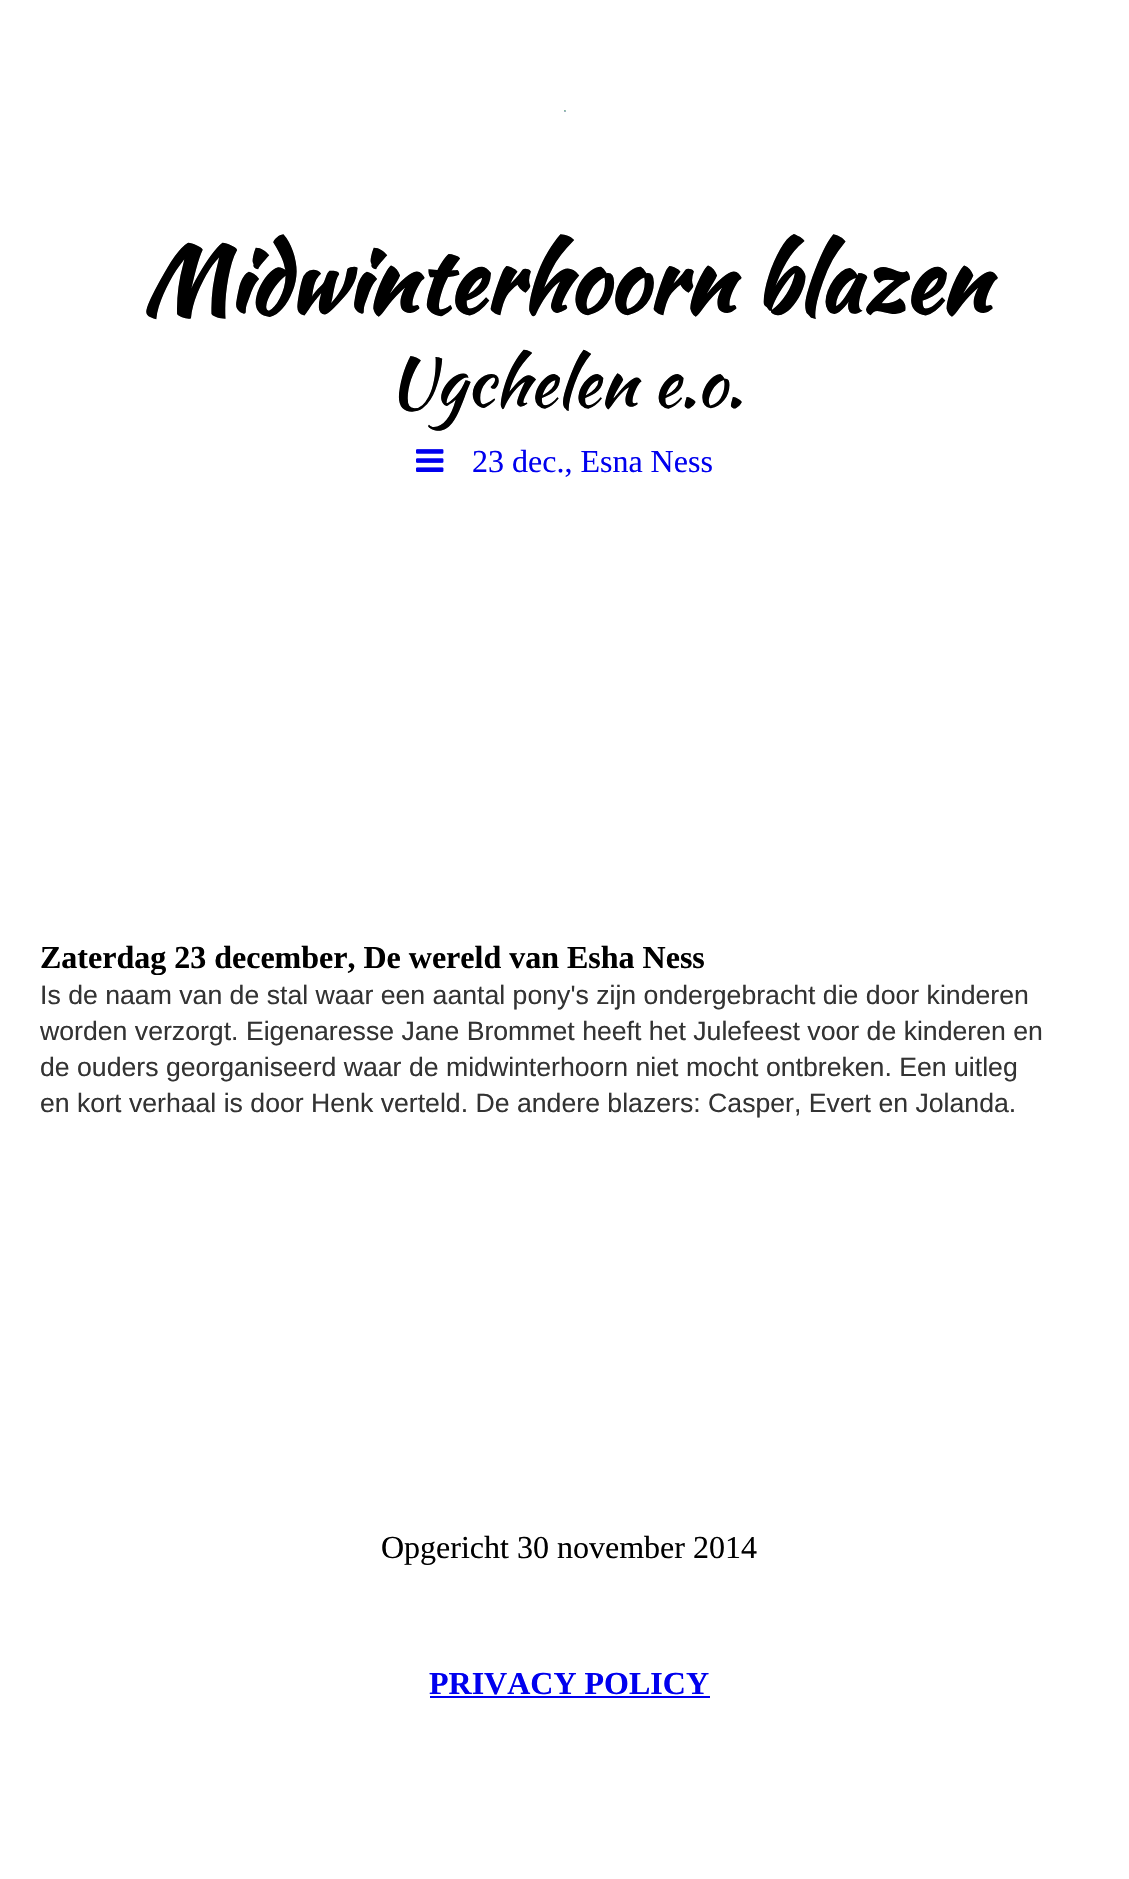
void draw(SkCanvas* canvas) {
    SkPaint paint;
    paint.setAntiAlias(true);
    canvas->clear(0xFFFFFFFF);
    canvas->drawImageRect(SkImages::DeferredFromEncodedData(SkData::MakeFromFileName("img1.png")), SkRect::MakeXYWH(564, 110, 2, 2), SkSamplingOptions());
    SkFont font1(fontMgr->matchFamilyStyle("Kaushan Script", SkFontStyle::Bold()), 90.5f);
    font1.setSubpixel(true);
    paint.setColor(0xFF000000);
    canvas->drawString("Midwinterhoorn blazen", 142, 312, font1, paint);
    SkFont font2(fontMgr->matchFamilyStyle("Kaushan Script", SkFontStyle::Normal()), 67.75f);
    font2.setSubpixel(true);
    canvas->drawString("Ugchelen e.o.", 388, 406, font2, paint);
    canvas->drawImageRect(SkImages::DeferredFromEncodedData(SkData::MakeFromFileName("img2.png")), SkRect::MakeXYWH(416, 449, 28, 23), SkSamplingOptions());
    SkFont font3(fontMgr->matchFamilyStyle("Liberation Serif", SkFontStyle::Normal()), 32);
    font3.setSubpixel(true);
    paint.setColor(0xFF0000EE);
    canvas->drawString("23 dec., Esna Ness", 472, 472, font3, paint);
    SkFont font4(fontMgr->matchFamilyStyle("Liberation Serif", SkFontStyle::Bold()), 32);
    font4.setSubpixel(true);
    paint.setColor(0xFF000000);
    canvas->drawString("Zaterdag 23 december, De wereld van Esha Ness", 40, 968, font4, paint);
    SkFont font5(fontMgr->matchFamilyStyle("Liberation Sans", SkFontStyle::Normal()), 26.65f);
    font5.setSubpixel(true);
    paint.setColor(0xFF333333);
    canvas->drawString("Is de naam van de stal waar een aantal pony's zijn ondergebracht die door kinderen", 40, 1004, font5, paint);
    canvas->drawString("worden verzorgt. Eigenaresse Jane Brommet heeft het Julefeest voor de kinderen en", 40, 1040, font5, paint);
    canvas->drawString("de ouders georganiseerd waar de midwinterhoorn niet mocht ontbreken. Een uitleg", 40, 1076, font5, paint);
    canvas->drawString("en kort verhaal is door Henk verteld. De andere blazers: Casper, Evert en Jolanda.", 40, 1112, font5, paint);
    paint.setColor(0xFF000000);
    canvas->drawString("Opgericht 30 november 2014", 381, 1558, font3, paint);
    paint.setColor(0xFF0000EE);
    canvas->drawString("PRIVACY POLICY", 429, 1694, font4, paint);
    canvas->drawRect(SkRect::MakeXYWH(430, 1696, 280, 2), paint);
}
